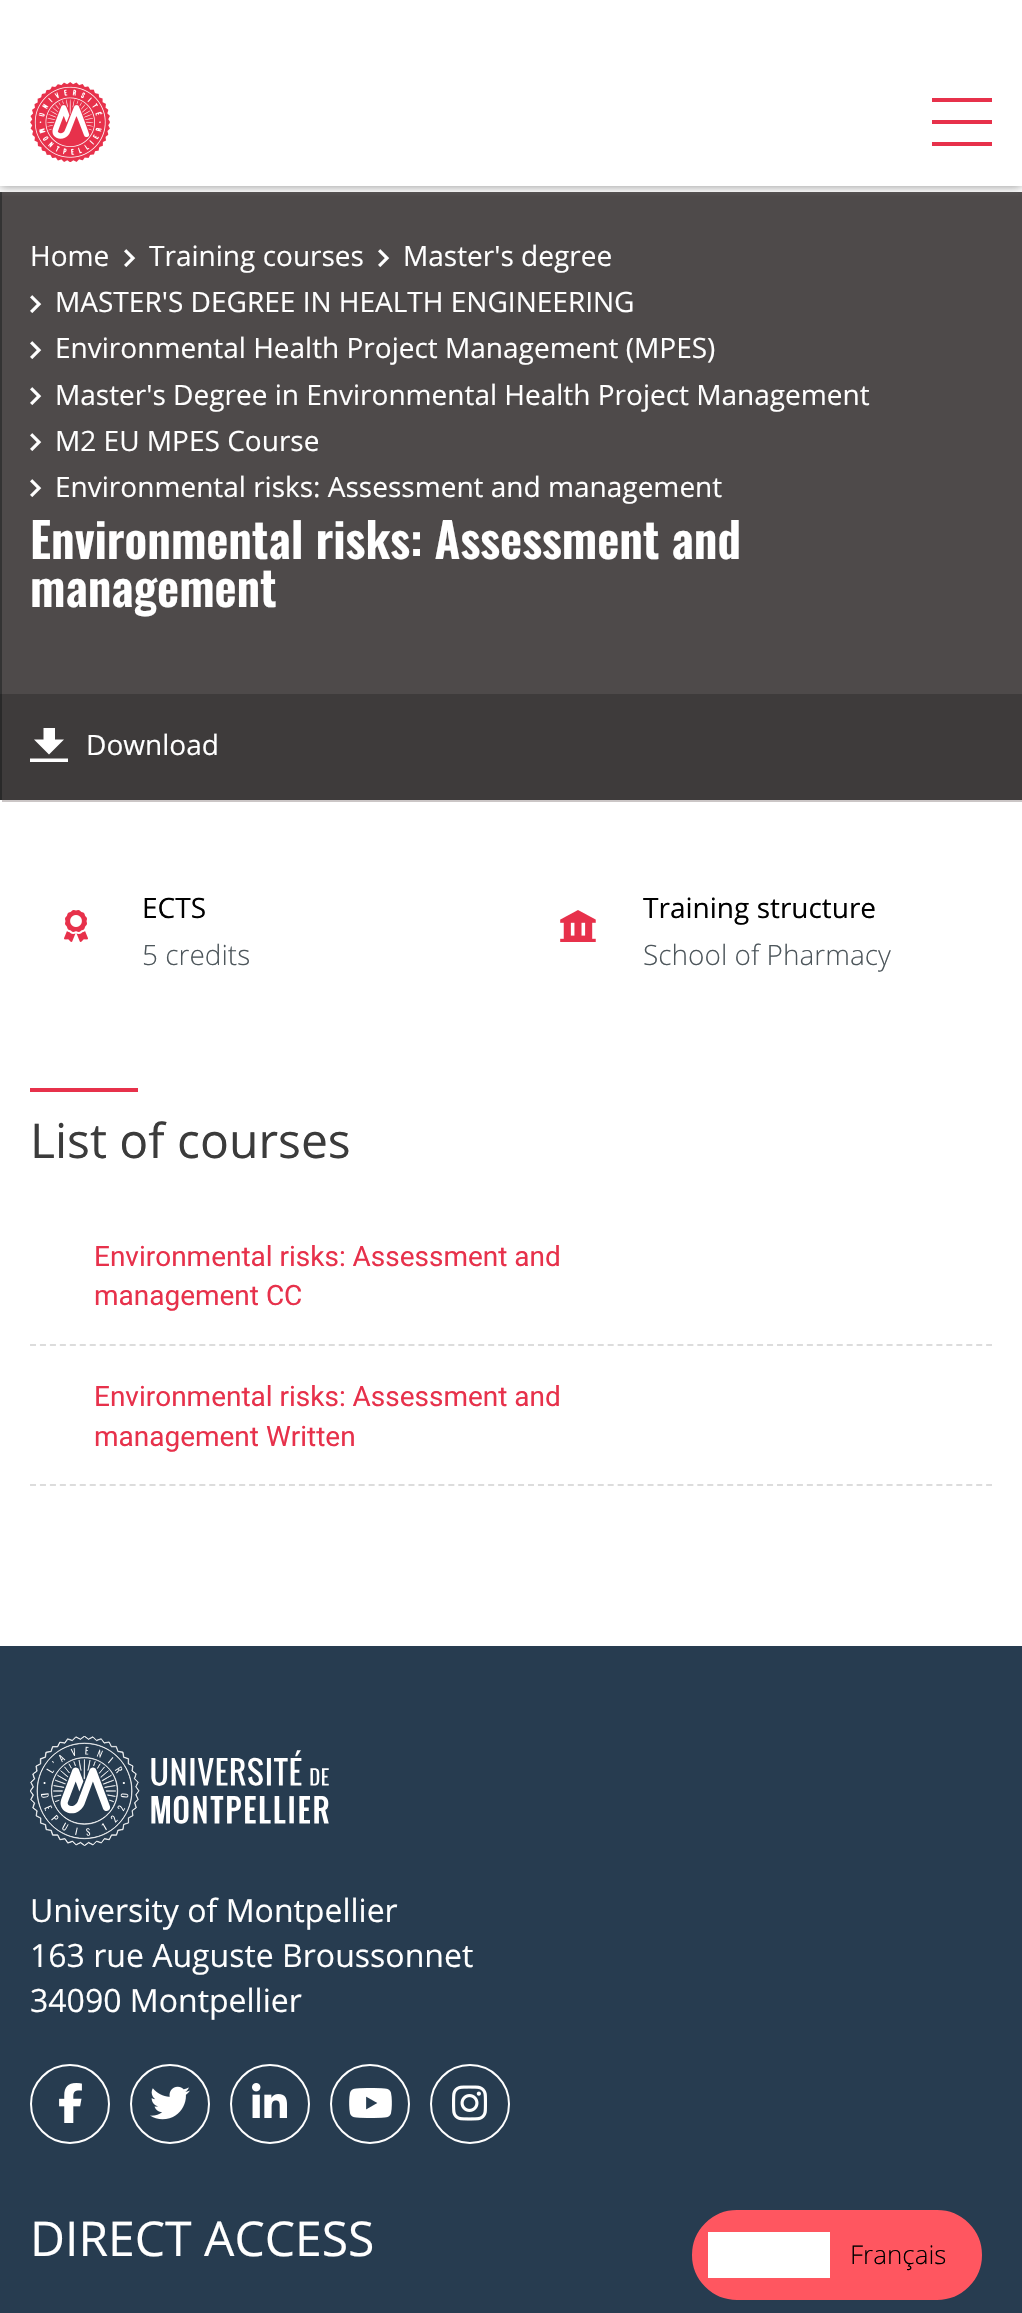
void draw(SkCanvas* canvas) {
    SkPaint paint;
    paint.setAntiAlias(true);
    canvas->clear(0xFFFFFFFF);
    paint.setColor(0xFFCBC6C6);
    canvas->drawRect(SkRect::MakeXYWH(2, 800, 1020, 2), paint);
    paint.setColor(0xFF333333);
    canvas->drawRect(SkRect::MakeXYWH(0, 192, 2, 502), paint);
    paint.setColor(0xFF4E4A4A);
    canvas->drawRect(SkRect::MakeXYWH(2, 192, 1020, 502), paint);
    canvas->save();
    canvas->clipRect(SkRect::MakeXYWH(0, 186, 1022, 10));
    paint.setColor(0xFF8A8A8A);
    paint.setMaskFilter(SkMaskFilter::MakeBlur(kNormal_SkBlurStyle, 5));
    canvas->drawRect(SkRect::MakeXYWH(0, 0, 1022, 186), paint);
    paint.setMaskFilter(nullptr);
    canvas->restore();
    canvas->drawImageRect(SkImages::DeferredFromEncodedData(SkData::MakeFromFileName("img1.png")), SkRect::MakeXYWH(30, 82, 80, 80), SkSamplingOptions());
    paint.setColor(0xFFE7314B);
    canvas->drawRect(SkRect::MakeXYWH(932, 98, 60, 4), paint);
    canvas->drawRect(SkRect::MakeXYWH(932, 120, 60, 4), paint);
    canvas->drawRect(SkRect::MakeXYWH(932, 142, 60, 4), paint);
    paint.setColor(0xFF292929);
    canvas->drawRect(SkRect::MakeXYWH(0, 694, 2, 106), paint);
    paint.setColor(0xFF3E3B3B);
    canvas->drawRect(SkRect::MakeXYWH(2, 694, 1020, 106), paint);
    SkFont font1(fontMgr->matchFamilyStyle("Open Sans", SkFontStyle::Normal()), 28);
    font1.setSubpixel(true);
    paint.setColor(0xFFFFFFFF);
    canvas->drawString("Home", 30, 266, font1, paint);
    canvas->drawImageRect(SkImages::DeferredFromEncodedData(SkData::MakeFromFileName("img2.png")), SkRect::MakeXYWH(124, 249, 12, 18), SkSamplingOptions());
    canvas->drawString("Training courses", 149, 266, font1, paint);
    canvas->drawImageRect(SkImages::DeferredFromEncodedData(SkData::MakeFromFileName("img2.png")), SkRect::MakeXYWH(378, 249, 12, 18), SkSamplingOptions());
    canvas->drawString("Master's degree", 403, 266, font1, paint);
    canvas->drawImageRect(SkImages::DeferredFromEncodedData(SkData::MakeFromFileName("img2.png")), SkRect::MakeXYWH(30, 295, 12, 18), SkSamplingOptions());
    canvas->drawString("MASTER'S DEGREE IN HEALTH ENGINEERING", 55, 312, font1, paint);
    canvas->drawImageRect(SkImages::DeferredFromEncodedData(SkData::MakeFromFileName("img2.png")), SkRect::MakeXYWH(30, 341, 12, 18), SkSamplingOptions());
    canvas->drawString("Environmental Health Project Management (MPES)", 55, 358, font1, paint);
    canvas->drawImageRect(SkImages::DeferredFromEncodedData(SkData::MakeFromFileName("img2.png")), SkRect::MakeXYWH(30, 387, 12, 18), SkSamplingOptions());
    canvas->drawString("Master's Degree in Environmental Health Project Management", 55, 405, font1, paint);
    canvas->drawImageRect(SkImages::DeferredFromEncodedData(SkData::MakeFromFileName("img2.png")), SkRect::MakeXYWH(30, 433, 12, 18), SkSamplingOptions());
    canvas->drawString("M2 EU MPES Course", 55, 451, font1, paint);
    canvas->drawImageRect(SkImages::DeferredFromEncodedData(SkData::MakeFromFileName("img2.png")), SkRect::MakeXYWH(30, 479, 12, 18), SkSamplingOptions());
    canvas->drawString("Environmental risks: Assessment and management", 55, 497, font1, paint);
    SkFont font2(fontMgr->matchFamilyStyle("Oswald", SkFontStyle(600, SkFontStyle::kNormal_Width, SkFontStyle::kUpright_Slant)), 48);
    font2.setSubpixel(true);
    canvas->drawString("Environmental risks: Assessment and", 30, 559, font2, paint);
    canvas->drawString("management", 30, 607, font2, paint);
    canvas->drawPath(SkPathBuilder().moveTo(55, 739.5f).lineTo(55, 728).lineTo(43.5f, 728).lineTo(43.5f, 739.5f).lineTo(34, 739.5f).lineTo(49, 754.5f).lineTo(64, 739.5f).close().moveTo(30, 758.5f).lineTo(68, 758.5f).lineTo(68, 762).lineTo(30, 762).close().detach(), paint);
    canvas->drawString("Download", 86, 755, font1, paint);
    canvas->drawImageRect(SkImages::DeferredFromEncodedData(SkData::MakeFromFileName("img3.png")), SkRect::MakeXYWH(64, 910, 24, 32), SkSamplingOptions());
    paint.setColor(0xFF000000);
    canvas->drawString("ECTS", 142, 918, font1, paint);
    SkFont font3(fontMgr->matchFamilyStyle("Open Sans", SkFontStyle(300, SkFontStyle::kNormal_Width, SkFontStyle::kUpright_Slant)), 28);
    font3.setSubpixel(true);
    paint.setColor(0xFF4D565B);
    canvas->drawString("5 credits", 142, 965, font3, paint);
    canvas->drawImageRect(SkImages::DeferredFromEncodedData(SkData::MakeFromFileName("img4.png")), SkRect::MakeXYWH(560, 910, 36, 32), SkSamplingOptions());
    paint.setColor(0xFF000000);
    canvas->drawString("Training structure", 643, 918, font1, paint);
    paint.setColor(0xFF4D565B);
    canvas->drawString("School of Pharmacy", 643, 965, font3, paint);
    paint.setColor(0xFFE7314B);
    canvas->drawRect(SkRect::MakeXYWH(30, 1088, 108, 4), paint);
    SkFont font4(fontMgr->matchFamilyStyle("Open Sans", SkFontStyle::Normal()), 48);
    font4.setSubpixel(true);
    paint.setColor(0xFF3B3B3B);
    canvas->drawString("List of courses", 30, 1158, font4, paint);
    paint.setStyle(SkPaint::kStroke_Style);
    paint.setStrokeWidth(2);
    paint.setColor(0xFFDCDCDC);
    paint.setPathEffect(SkDashPathEffect::Make({{6, 3.96f}}, 0));
    canvas->drawPath(SkPathBuilder().moveTo(30, 1345).lineTo(992, 1345).detach(), paint);
    paint.setPathEffect(nullptr);
    SkFont font5(fontMgr->matchFamilyStyle("Roboto", SkFontStyle::Normal()), 28);
    font5.setSubpixel(true);
    paint.setStyle(SkPaint::kFill_Style);
    paint.setColor(0xFFE7314B);
    canvas->drawString("Environmental risks: Assessment and", 94, 1266, font5, paint);
    canvas->drawString("management CC", 94, 1305, font5, paint);
    paint.setStyle(SkPaint::kStroke_Style);
    paint.setColor(0xFFDCDCDC);
    paint.setPathEffect(SkDashPathEffect::Make({{6, 3.96f}}, 0));
    canvas->drawPath(SkPathBuilder().moveTo(30, 1485).lineTo(992, 1485).detach(), paint);
    paint.setPathEffect(nullptr);
    paint.setStyle(SkPaint::kFill_Style);
    paint.setColor(0xFFE7314B);
    canvas->drawString("Environmental risks: Assessment and", 94, 1406, font5, paint);
    canvas->drawString("management Written", 94, 1446, font5, paint);
    paint.setColor(0xFF273C50);
    canvas->drawRect(SkRect::MakeXYWH(0, 1646, 1022, 667), paint);
    canvas->drawImageRect(SkImages::DeferredFromEncodedData(SkData::MakeFromFileName("img5.png")), SkRect::MakeXYWH(30, 1736, 299, 110), SkSamplingOptions());
    SkFont font6(fontMgr->matchFamilyStyle("Open Sans", SkFontStyle::Normal()), 32);
    font6.setSubpixel(true);
    paint.setColor(0xFFFFFFFF);
    canvas->drawString("University of Montpellier", 30, 1922, font6, paint);
    canvas->drawString("163 rue Auguste Broussonnet", 30, 1967, font6, paint);
    canvas->drawString("34090 Montpellier", 30, 2012, font6, paint);
    paint.setStyle(SkPaint::kStroke_Style);
    canvas->drawCircle(70, 2104, 39, paint);
    canvas->drawImageRect(SkImages::DeferredFromEncodedData(SkData::MakeFromFileName("img6.png")), SkRect::MakeXYWH(59, 2083, 23, 40), SkSamplingOptions());
    canvas->drawCircle(170, 2104, 39, paint);
    canvas->drawImageRect(SkImages::DeferredFromEncodedData(SkData::MakeFromFileName("img7.png")), SkRect::MakeXYWH(150, 2086, 40, 34), SkSamplingOptions());
    canvas->drawCircle(270, 2104, 39, paint);
    canvas->drawImageRect(SkImages::DeferredFromEncodedData(SkData::MakeFromFileName("img8.png")), SkRect::MakeXYWH(252, 2083, 35, 35), SkSamplingOptions());
    canvas->drawCircle(370, 2104, 39, paint);
    canvas->drawImageRect(SkImages::DeferredFromEncodedData(SkData::MakeFromFileName("img9.png")), SkRect::MakeXYWH(349, 2088, 43, 30), SkSamplingOptions());
    canvas->drawCircle(470, 2104, 39, paint);
    canvas->drawImageRect(SkImages::DeferredFromEncodedData(SkData::MakeFromFileName("img10.png")), SkRect::MakeXYWH(452, 2085, 35, 36), SkSamplingOptions());
    paint.setStyle(SkPaint::kFill_Style);
    canvas->drawString("DIRECT ACCESS", 30, 2256, font4, paint);
    paint.setColor(0xFFFF5660);
    canvas->drawRoundRect(SkRect::MakeXYWH(693, 2211, 288, 88), 44, 44, paint);
    paint.setStyle(SkPaint::kStroke_Style);
    canvas->drawRoundRect(SkRect::MakeXYWH(693, 2211, 288, 88), 44, 44, paint);
    paint.setStyle(SkPaint::kFill_Style);
    paint.setColor(0xFFFFFFFF);
    canvas->drawRect(SkRect::MakeXYWH(708, 2232, 122, 46), paint);
    SkFont font7(fontMgr->matchFamilyStyle("Open Sans", SkFontStyle(300, SkFontStyle::kNormal_Width, SkFontStyle::kUpright_Slant)), 26);
    font7.setSubpixel(true);
    paint.setColor(0xFF000000);
    canvas->drawString("Français", 850, 2264, font7, paint);
}
